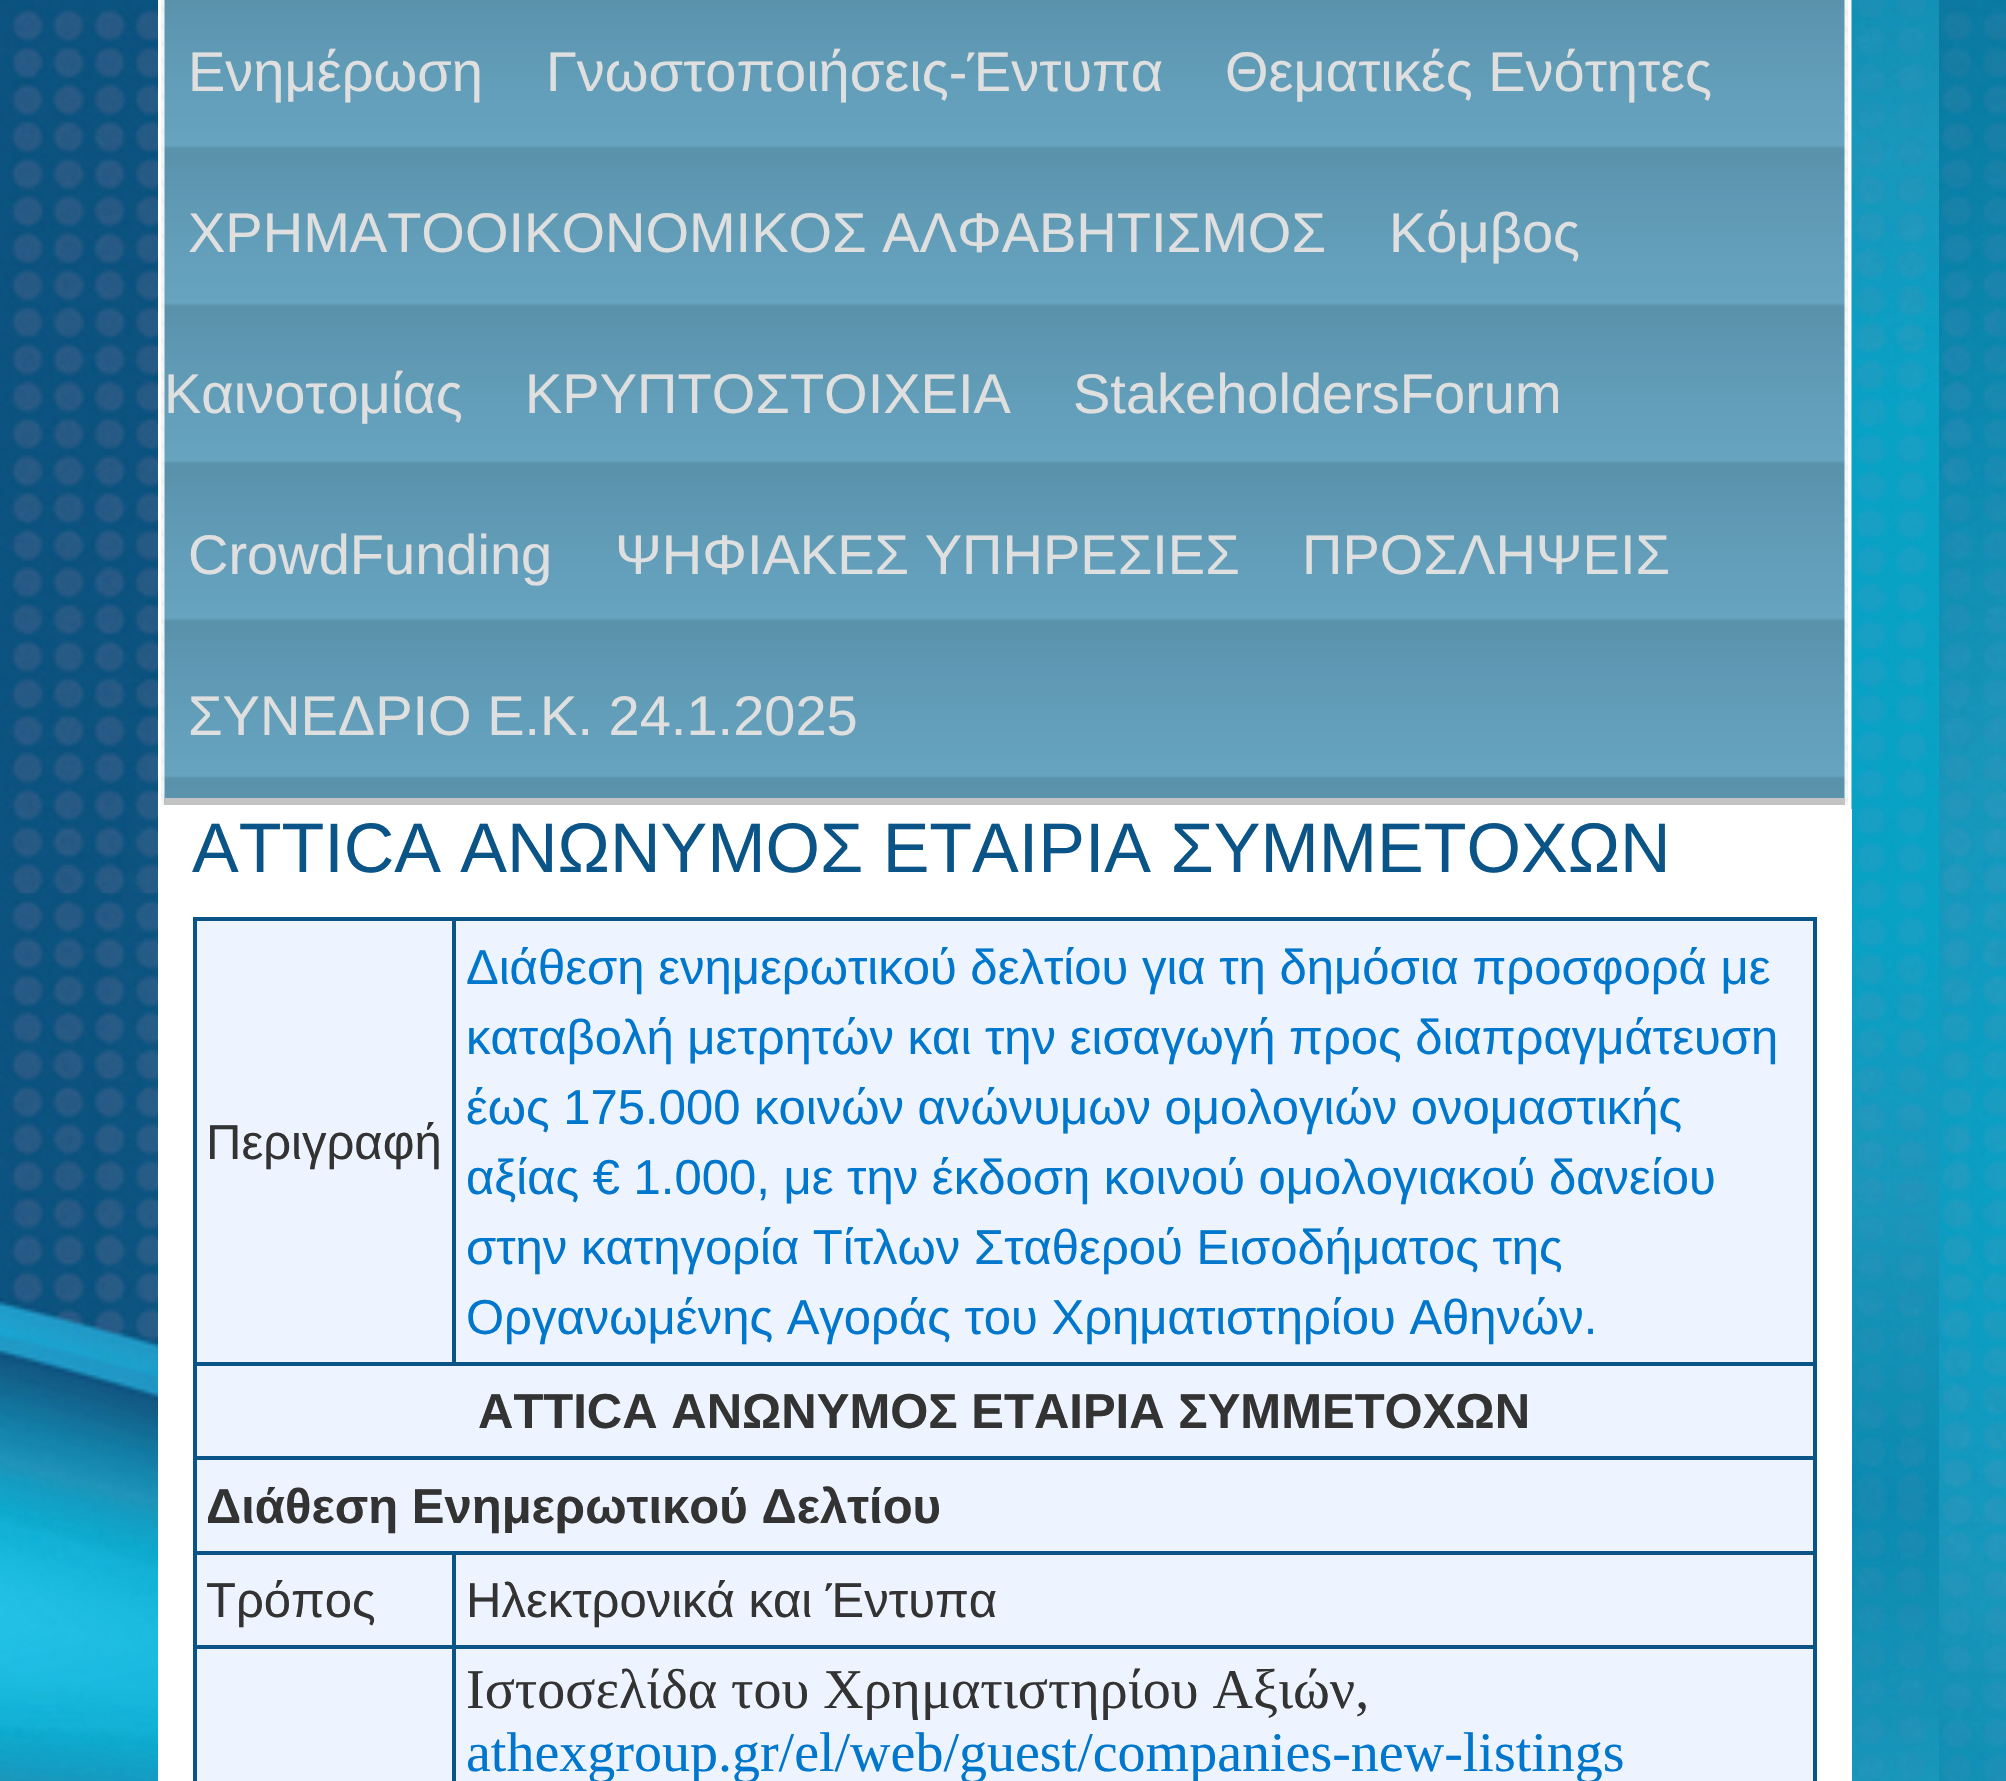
void draw(SkCanvas* canvas) {
    SkPaint paint;
    paint.setAntiAlias(true);
    canvas->clear(0xFFFFFFFF);
    canvas->drawImageRect(SkImages::DeferredFromEncodedData(SkData::MakeFromFileName("img1.png")), SkRect::MakeXYWH(0, 1278, 2006, 503), SkSamplingOptions());
    canvas->drawImageRect(SkImages::DeferredFromEncodedData(SkData::MakeFromFileName("img2.png")), SkRect::MakeXYWH(0, 0, 2006, 1278), SkSamplingOptions());
    paint.setColor(0xFFFFFFFF);
    canvas->drawRect(SkRect::MakeXYWH(158, 0, 1694, 809), paint);
    canvas->drawImageRect(SkImages::DeferredFromEncodedData(SkData::MakeFromFileName("img3.png")), SkRect::MakeXYWH(161, 0, 1687, 805), SkSamplingOptions());
    canvas->drawImageRect(SkImages::DeferredFromEncodedData(SkData::MakeFromFileName("img4.png")), SkRect::MakeXYWH(164, 0, 1681, 805), SkSamplingOptions());
    paint.setColor(0xFFC3C3C3);
    canvas->drawRect(SkRect::MakeXYWH(165, 798, 1680, 7), paint);
    SkFont font1(fontMgr->matchFamilyStyle("Liberation Sans", SkFontStyle::Normal()), 56);
    font1.setSubpixel(true);
    paint.setColor(0xFFDFDFDF);
    canvas->drawString("Ενημέρωση", 188, 91, font1, paint);
    canvas->drawString("Γνωστοποιήσεις-Έντυπα", 546, 91, font1, paint);
    canvas->drawString("Θεματικές Ενότητες", 1225, 91, font1, paint);
    canvas->drawString("ΧΡΗΜΑΤΟΟΙΚΟΝΟΜΙΚΟΣ ΑΛΦΑΒΗΤΙΣΜΟΣ", 188, 252, font1, paint);
    canvas->drawString("Κόμβος", 1389, 252, font1, paint);
    canvas->drawString("Καινοτομίας", 164, 413, font1, paint);
    canvas->drawString("ΚΡΥΠΤΟΣΤΟΙΧΕΙΑ", 525, 413, font1, paint);
    canvas->drawString("StakeholdersForum", 1073, 413, font1, paint);
    canvas->drawString("CrowdFunding", 188, 574, font1, paint);
    canvas->drawString("ΨΗΦΙΑΚΕΣ ΥΠΗΡΕΣΙΕΣ", 615, 574, font1, paint);
    canvas->drawString("ΠΡΟΣΛΗΨΕΙΣ", 1302, 574, font1, paint);
    canvas->drawString("ΣΥΝΕΔΡΙΟ Ε.Κ. 24.1.2025", 188, 735, font1, paint);
    canvas->drawImageRect(SkImages::DeferredFromEncodedData(SkData::MakeFromFileName("img5.png")), SkRect::MakeXYWH(1851, 0, 88, 1781), SkSamplingOptions());
    paint.setColor(0xFFFFFFFF);
    canvas->drawRect(SkRect::MakeXYWH(158, 809, 1694, 972), paint);
    SkFont font2(fontMgr->matchFamilyStyle("Liberation Sans", SkFontStyle::Normal()), 70);
    font2.setSubpixel(true);
    paint.setColor(0xFF0A5487);
    canvas->drawString("ΑTTICA ΑΝΩΝΥΜΟΣ ΕΤΑΙΡΙΑ ΣΥΜΜΕΤΟΧΩΝ", 192, 872, font2, paint);
    paint.setColor(0xFFEDF3FF);
    canvas->drawRect(SkRect::MakeXYWH(197, 921, 255, 441), paint);
    paint.setColor(0xFF0A5487);
    canvas->drawRect(SkRect::MakeXYWH(452, 917, 1365, 4), paint);
    canvas->drawRect(SkRect::MakeXYWH(193, 1362, 1624, 4), paint);
    canvas->drawRect(SkRect::MakeXYWH(452, 917, 4, 448), paint);
    canvas->drawRect(SkRect::MakeXYWH(193, 917, 262, 4), paint);
    canvas->drawRect(SkRect::MakeXYWH(193, 1456, 1624, 4), paint);
    canvas->drawRect(SkRect::MakeXYWH(452, 1551, 1365, 4), paint);
    canvas->drawRect(SkRect::MakeXYWH(452, 1645, 1365, 4), paint);
    canvas->drawRect(SkRect::MakeXYWH(452, 1645, 4, 136), paint);
    canvas->drawRect(SkRect::MakeXYWH(193, 1645, 262, 4), paint);
    canvas->drawRect(SkRect::MakeXYWH(452, 1551, 4, 98), paint);
    canvas->drawRect(SkRect::MakeXYWH(193, 1551, 262, 4), paint);
    canvas->drawRect(SkRect::MakeXYWH(193, 1645, 4, 136), paint);
    canvas->drawRect(SkRect::MakeXYWH(193, 1551, 4, 98), paint);
    canvas->drawRect(SkRect::MakeXYWH(193, 1456, 4, 98), paint);
    canvas->drawRect(SkRect::MakeXYWH(193, 1362, 4, 98), paint);
    canvas->drawRect(SkRect::MakeXYWH(193, 917, 4, 448), paint);
    SkFont font3(fontMgr->matchFamilyStyle("Liberation Sans", SkFontStyle::Normal()), 49);
    font3.setSubpixel(true);
    paint.setColor(0xFF333333);
    canvas->drawString("Περιγραφή", 206, 1159, font3, paint);
    paint.setColor(0xFFEDF3FF);
    canvas->drawRect(SkRect::MakeXYWH(456, 921, 1357, 441), paint);
    paint.setColor(0xFF0A5487);
    canvas->drawRect(SkRect::MakeXYWH(1813, 1645, 4, 136), paint);
    canvas->drawRect(SkRect::MakeXYWH(1813, 1551, 4, 98), paint);
    canvas->drawRect(SkRect::MakeXYWH(1813, 1456, 4, 98), paint);
    canvas->drawRect(SkRect::MakeXYWH(1813, 1362, 4, 98), paint);
    canvas->drawRect(SkRect::MakeXYWH(1813, 917, 4, 448), paint);
    paint.setColor(0xFF0077CC);
    canvas->drawString("Διάθεση ενημερωτικού δελτίου για τη δημόσια προσφορά με", 466, 984, font3, paint);
    canvas->drawString("καταβολή μετρητών και την εισαγωγή προς διαπραγμάτευση", 466, 1054, font3, paint);
    canvas->drawString("έως 175.000 κοινών ανώνυμων ομολογιών ονομαστικής", 466, 1124, font3, paint);
    canvas->drawString("αξίας € 1.000, με την έκδοση κοινού ομολογιακού δανείου", 466, 1194, font3, paint);
    canvas->drawString("στην κατηγορία Τίτλων Σταθερού Εισοδήματος της", 466, 1264, font3, paint);
    canvas->drawString("Οργανωμένης Αγοράς του Χρηματιστηρίου Αθηνών.", 466, 1334, font3, paint);
    paint.setColor(0xFFEDF3FF);
    canvas->drawRect(SkRect::MakeXYWH(197, 1366, 1616, 90), paint);
    SkFont font4(fontMgr->matchFamilyStyle("Liberation Sans", SkFontStyle::Bold()), 49);
    font4.setSubpixel(true);
    paint.setColor(0xFF333333);
    canvas->drawString("ΑTTICA ΑΝΩΝΥΜΟΣ ΕΤΑΙΡΙΑ ΣΥΜΜΕΤΟΧΩΝ", 478, 1428, font4, paint);
    paint.setColor(0xFFEDF3FF);
    canvas->drawRect(SkRect::MakeXYWH(197, 1460, 1616, 91), paint);
    paint.setColor(0xFF333333);
    canvas->drawString("Διάθεση Ενημερωτικού Δελτίου", 206, 1523, font4, paint);
    paint.setColor(0xFFEDF3FF);
    canvas->drawRect(SkRect::MakeXYWH(197, 1555, 255, 90), paint);
    paint.setColor(0xFF333333);
    canvas->drawString("Τρόπος", 206, 1617, font3, paint);
    paint.setColor(0xFFEDF3FF);
    canvas->drawRect(SkRect::MakeXYWH(456, 1555, 1357, 90), paint);
    paint.setColor(0xFF333333);
    canvas->drawString("Ηλεκτρονικά και Έντυπα", 466, 1617, font3, paint);
    paint.setColor(0xFFEDF3FF);
    canvas->drawRect(SkRect::MakeXYWH(197, 1649, 255, 132), paint);
    canvas->drawRect(SkRect::MakeXYWH(456, 1649, 1357, 132), paint);
    SkFont font5(fontMgr->matchFamilyStyle("Liberation Serif", SkFontStyle::Normal()), 56);
    font5.setSubpixel(true);
    paint.setColor(0xFF333333);
    canvas->drawString("Ιστοσελίδα του Χρηματιστηρίου Αξιών,", 466, 1708, font5, paint);
    paint.setColor(0xFF0077CC);
    canvas->drawString("athexgroup.gr/el/web/guest/companies-new-listings", 466, 1771, font5, paint);
}
